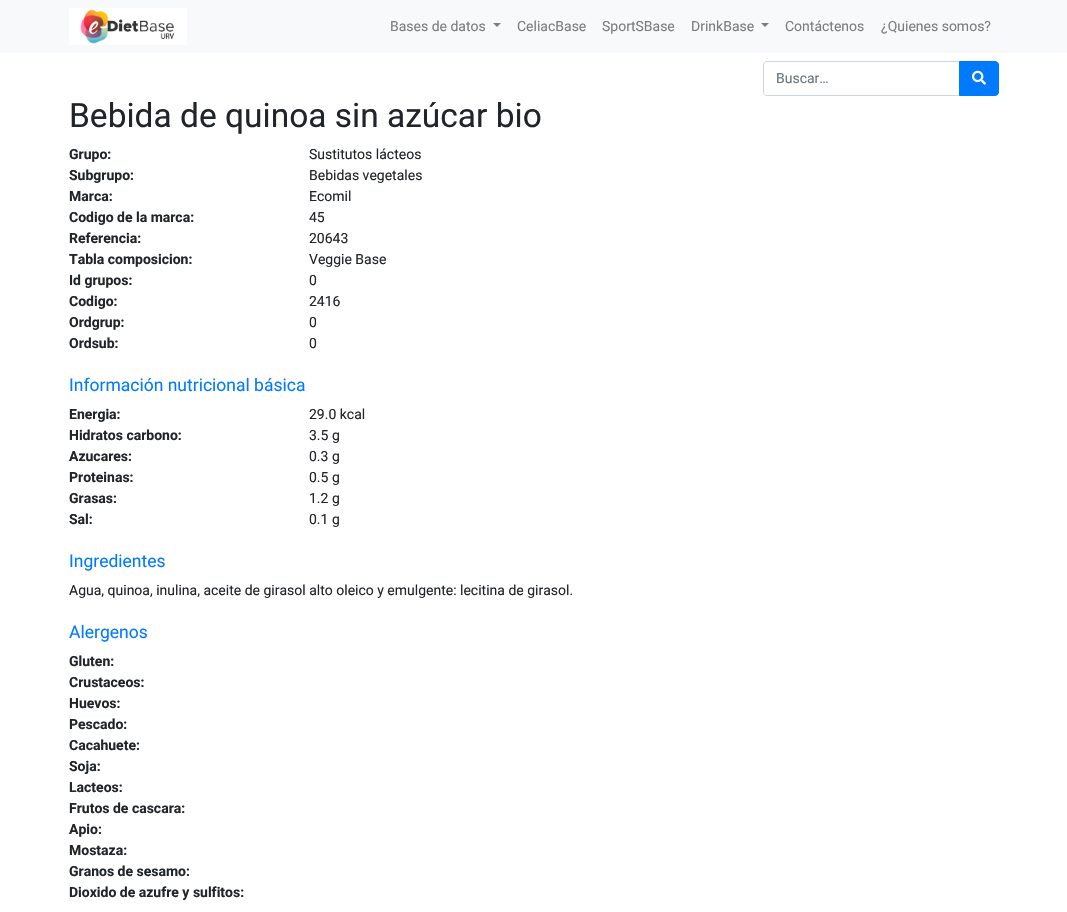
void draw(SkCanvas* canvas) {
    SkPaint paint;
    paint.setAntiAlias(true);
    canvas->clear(0xFFFFFFFF);
    paint.setColor(0xFFF8F9FA);
    canvas->drawRect(SkRect::MakeXYWH(0, 0, 1067, 53), paint);
    canvas->drawImageRect(SkImages::DeferredFromEncodedData(SkData::MakeFromFileName("img1.png")), SkRect::MakeXYWH(69, 8, 118, 37), SkSamplingOptions());
    SkFont font1(fontMgr->matchFamilyStyle("Roboto", SkFontStyle::Normal()), 14);
    font1.setSubpixel(true);
    paint.setColor(0xFF7C7D7D);
    canvas->drawString("Bases de datos", 390, 31, font1, paint);
    canvas->drawPath(SkPathBuilder().moveTo(493, 23).lineTo(501, 23).lineTo(497, 27).close().detach(), paint);
    canvas->drawString("CeliacBase", 517, 31, font1, paint);
    canvas->drawString("SportSBase", 602, 31, font1, paint);
    canvas->drawString("DrinkBase", 691, 31, font1, paint);
    canvas->drawPath(SkPathBuilder().moveTo(761, 23).lineTo(769, 23).lineTo(765, 27).close().detach(), paint);
    canvas->drawString("Contáctenos", 785, 31, font1, paint);
    canvas->drawString("¿Quienes somos?", 881, 31, font1, paint);
    paint.setStyle(SkPaint::kStroke_Style);
    paint.setStrokeWidth(1);
    paint.setColor(0xFFCED4DA);
    canvas->drawPath(SkPathBuilder().moveTo(767, 61.5f).lineTo(959.5f, 61.5f).lineTo(959.5f, 95.5f).lineTo(767, 95.5f).cubicTo(765, 95.5f, 763.5f, 94, 763.5f, 92).lineTo(763.5f, 65).cubicTo(763.5f, 63, 765, 61.5f, 767, 61.5f).close().detach(), paint);
    paint.setStyle(SkPaint::kFill_Style);
    paint.setColor(0xFF6C757D);
    canvas->drawString("Buscar…", 776, 83, font1, paint);
    paint.setColor(0xFF007BFF);
    canvas->drawPath(SkPathBuilder().moveTo(959.5f, 61.5f).lineTo(995, 61.5f).cubicTo(997, 61.5f, 998.5f, 63, 998.5f, 65).lineTo(998.5f, 92).cubicTo(998.5f, 94, 997, 95.5f, 995, 95.5f).lineTo(959.5f, 95.5f).close().detach(), paint);
    paint.setStyle(SkPaint::kStroke_Style);
    canvas->drawPath(SkPathBuilder().moveTo(959.5f, 61.5f).lineTo(995, 61.5f).cubicTo(997, 61.5f, 998.5f, 63, 998.5f, 65).lineTo(998.5f, 92).cubicTo(998.5f, 94, 997, 95.5f, 995, 95.5f).lineTo(959.5f, 95.5f).close().detach(), paint);
    canvas->drawImageRect(SkImages::DeferredFromEncodedData(SkData::MakeFromFileName("img2.png")), SkRect::MakeXYWH(972, 70, 14, 15), SkSamplingOptions());
    SkFont font2(fontMgr->matchFamilyStyle("Roboto", SkFontStyle::Normal()), 33.5f);
    font2.setSubpixel(true);
    paint.setStyle(SkPaint::kFill_Style);
    paint.setColor(0xFF212529);
    canvas->drawString("Bebida de quinoa sin azúcar bio", 69, 127, font2, paint);
    SkFont font3(fontMgr->matchFamilyStyle("Roboto", SkFontStyle::Bold()), 14);
    font3.setSubpixel(true);
    canvas->drawString("Grupo:", 69, 159, font3, paint);
    canvas->drawString("Sustitutos lácteos", 309, 159, font1, paint);
    canvas->drawString("Subgrupo:", 69, 180, font3, paint);
    canvas->drawString("Bebidas vegetales", 309, 180, font1, paint);
    canvas->drawString("Marca:", 69, 201, font3, paint);
    canvas->drawString("Ecomil", 309, 201, font1, paint);
    canvas->drawString("Codigo de la marca:", 69, 222, font3, paint);
    canvas->drawString("45", 309, 222, font1, paint);
    canvas->drawString("Referencia:", 69, 243, font3, paint);
    canvas->drawString("20643", 309, 243, font1, paint);
    canvas->drawString("Tabla composicion:", 69, 264, font3, paint);
    canvas->drawString("Veggie Base", 309, 264, font1, paint);
    canvas->drawString("Id grupos:", 69, 285, font3, paint);
    canvas->drawString("0", 309, 285, font1, paint);
    canvas->drawString("Codigo:", 69, 306, font3, paint);
    canvas->drawString("2416", 309, 306, font1, paint);
    canvas->drawString("Ordgrup:", 69, 327, font3, paint);
    canvas->drawString("0", 309, 327, font1, paint);
    canvas->drawString("Ordsub:", 69, 348, font3, paint);
    canvas->drawString("0", 309, 348, font1, paint);
    SkFont font4(fontMgr->matchFamilyStyle("Roboto", SkFontStyle::Normal()), 17.5f);
    font4.setSubpixel(true);
    paint.setColor(0xFF007BFF);
    canvas->drawString("Información nutricional básica", 69, 391, font4, paint);
    paint.setColor(0xFF212529);
    canvas->drawString("Energia:", 69, 419, font3, paint);
    canvas->drawString("29.0 kcal", 309, 419, font1, paint);
    canvas->drawString("Hidratos carbono:", 69, 440, font3, paint);
    canvas->drawString("3.5 g", 309, 440, font1, paint);
    canvas->drawString("Azucares:", 69, 461, font3, paint);
    canvas->drawString("0.3 g", 309, 461, font1, paint);
    canvas->drawString("Proteinas:", 69, 482, font3, paint);
    canvas->drawString("0.5 g", 309, 482, font1, paint);
    canvas->drawString("Grasas:", 69, 503, font3, paint);
    canvas->drawString("1.2 g", 309, 503, font1, paint);
    canvas->drawString("Sal:", 69, 524, font3, paint);
    canvas->drawString("0.1 g", 309, 524, font1, paint);
    paint.setColor(0xFF007BFF);
    canvas->drawString("Ingredientes", 69, 567, font4, paint);
    paint.setColor(0xFF212529);
    canvas->drawString("Agua, quinoa, inulina, aceite de girasol alto oleico y emulgente: lecitina de girasol.", 69, 595, font1, paint);
    paint.setColor(0xFF007BFF);
    canvas->drawString("Alergenos", 69, 638, font4, paint);
    paint.setColor(0xFF212529);
    canvas->drawString("Gluten:", 69, 666, font3, paint);
    canvas->drawString("Crustaceos:", 69, 687, font3, paint);
    canvas->drawString("Huevos:", 69, 708, font3, paint);
    canvas->drawString("Pescado:", 69, 729, font3, paint);
    canvas->drawString("Cacahuete:", 69, 750, font3, paint);
    canvas->drawString("Soja:", 69, 771, font3, paint);
    canvas->drawString("Lacteos:", 69, 792, font3, paint);
    canvas->drawString("Frutos de cascara:", 69, 813, font3, paint);
    canvas->drawString("Apio:", 69, 834, font3, paint);
    canvas->drawString("Mostaza:", 69, 855, font3, paint);
    canvas->drawString("Granos de sesamo:", 69, 876, font3, paint);
    canvas->drawString("Dioxido de azufre y sulfitos:", 69, 897, font3, paint);
}
